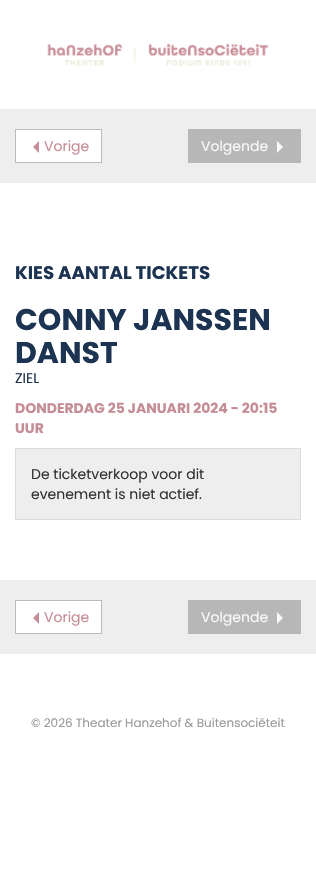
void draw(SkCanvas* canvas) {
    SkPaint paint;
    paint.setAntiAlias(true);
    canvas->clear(0xFFFFFFFF);
    canvas->drawImageRect(SkImages::DeferredFromEncodedData(SkData::MakeFromFileName("img1.png")), SkRect::MakeXYWH(47, 43, 222, 23), SkSamplingOptions());
    paint.setColor(0xFFEEEEEE);
    canvas->drawRect(SkRect::MakeXYWH(0, 109, 316, 74), paint);
    paint.setColor(0xFFFFFFFF);
    canvas->drawRect(SkRect::MakeXYWH(15.5f, 129.5f, 86, 33), paint);
    paint.setStyle(SkPaint::kStroke_Style);
    paint.setStrokeWidth(1);
    paint.setColor(0xFFBBBBBB);
    canvas->drawRect(SkRect::MakeXYWH(15.5f, 129.5f, 86, 33), paint);
    paint.setStyle(SkPaint::kFill_Style);
    paint.setColor(0xFFC58D96);
    canvas->drawPath(SkPathBuilder().moveTo(39, 141).lineTo(39, 153).lineTo(33, 147).close().detach(), paint);
    SkFont font1(fontMgr->matchFamilyStyle("Poppins", SkFontStyle::Normal()), 14);
    font1.setSubpixel(true);
    canvas->drawString("Vorige", 44, 151, font1, paint);
    paint.setColor(0xFFB7B7B7);
    canvas->drawRect(SkRect::MakeXYWH(188, 129, 113, 34), paint);
    paint.setColor(0xFFF9F9F9);
    canvas->drawString("Volgende", 201, 151, font1, paint);
    canvas->drawPath(SkPathBuilder().moveTo(277, 153).lineTo(277, 141).lineTo(283, 147).close().detach(), paint);
    SkFont font2(fontMgr->matchFamilyStyle("Poppins", SkFontStyle::Bold()), 18.25f);
    font2.setSubpixel(true);
    paint.setColor(0xFF1C3451);
    canvas->drawString("KIES AANTAL TICKETS", 15, 279, font2, paint);
    SkFont font3(fontMgr->matchFamilyStyle("Poppins", SkFontStyle::Bold()), 30);
    font3.setSubpixel(true);
    canvas->drawString("CONNY JANSSEN", 15, 330, font3, paint);
    canvas->drawString("DANST", 15, 363, font3, paint);
    canvas->drawString("ZIEL", 15, 383, font1, paint);
    SkFont font4(fontMgr->matchFamilyStyle("Poppins", SkFontStyle::Bold()), 14);
    font4.setSubpixel(true);
    paint.setColor(0xFFC58D96);
    canvas->drawString("DONDERDAG 25 JANUARI 2024 - 20:15", 15, 413, font4, paint);
    canvas->drawString("UUR", 15, 433, font4, paint);
    paint.setColor(0xFFEEEEEE);
    canvas->drawRect(SkRect::MakeXYWH(15.5f, 448.5f, 285, 71), paint);
    paint.setStyle(SkPaint::kStroke_Style);
    paint.setColor(0xFFDCDCDC);
    canvas->drawRect(SkRect::MakeXYWH(15.5f, 448.5f, 285, 71), paint);
    paint.setStyle(SkPaint::kFill_Style);
    paint.setColor(0xFF333333);
    canvas->drawString("De ticketverkoop voor dit", 31, 479, font1, paint);
    canvas->drawString("evenement is niet actief.", 31, 499, font1, paint);
    paint.setColor(0xFFEEEEEE);
    canvas->drawRect(SkRect::MakeXYWH(0, 580, 316, 74), paint);
    paint.setColor(0xFFFFFFFF);
    canvas->drawRect(SkRect::MakeXYWH(15.5f, 600.5f, 86, 33), paint);
    paint.setStyle(SkPaint::kStroke_Style);
    paint.setColor(0xFFBBBBBB);
    canvas->drawRect(SkRect::MakeXYWH(15.5f, 600.5f, 86, 33), paint);
    paint.setStyle(SkPaint::kFill_Style);
    paint.setColor(0xFFC58D96);
    canvas->drawPath(SkPathBuilder().moveTo(39, 612).lineTo(39, 624).lineTo(33, 618).close().detach(), paint);
    canvas->drawString("Vorige", 44, 622, font1, paint);
    paint.setColor(0xFFB7B7B7);
    canvas->drawRect(SkRect::MakeXYWH(188, 600, 113, 34), paint);
    paint.setColor(0xFFF9F9F9);
    canvas->drawString("Volgende", 201, 622, font1, paint);
    canvas->drawPath(SkPathBuilder().moveTo(277, 624).lineTo(277, 612).lineTo(283, 618).close().detach(), paint);
    SkFont font5(fontMgr->matchFamilyStyle("Poppins", SkFontStyle::Normal()), 12);
    font5.setSubpixel(true);
    paint.setColor(0xFF999999);
    canvas->drawString("© 2026 Theater Hanzehof & Buitensociëteit", 31, 727, font5, paint);
}
